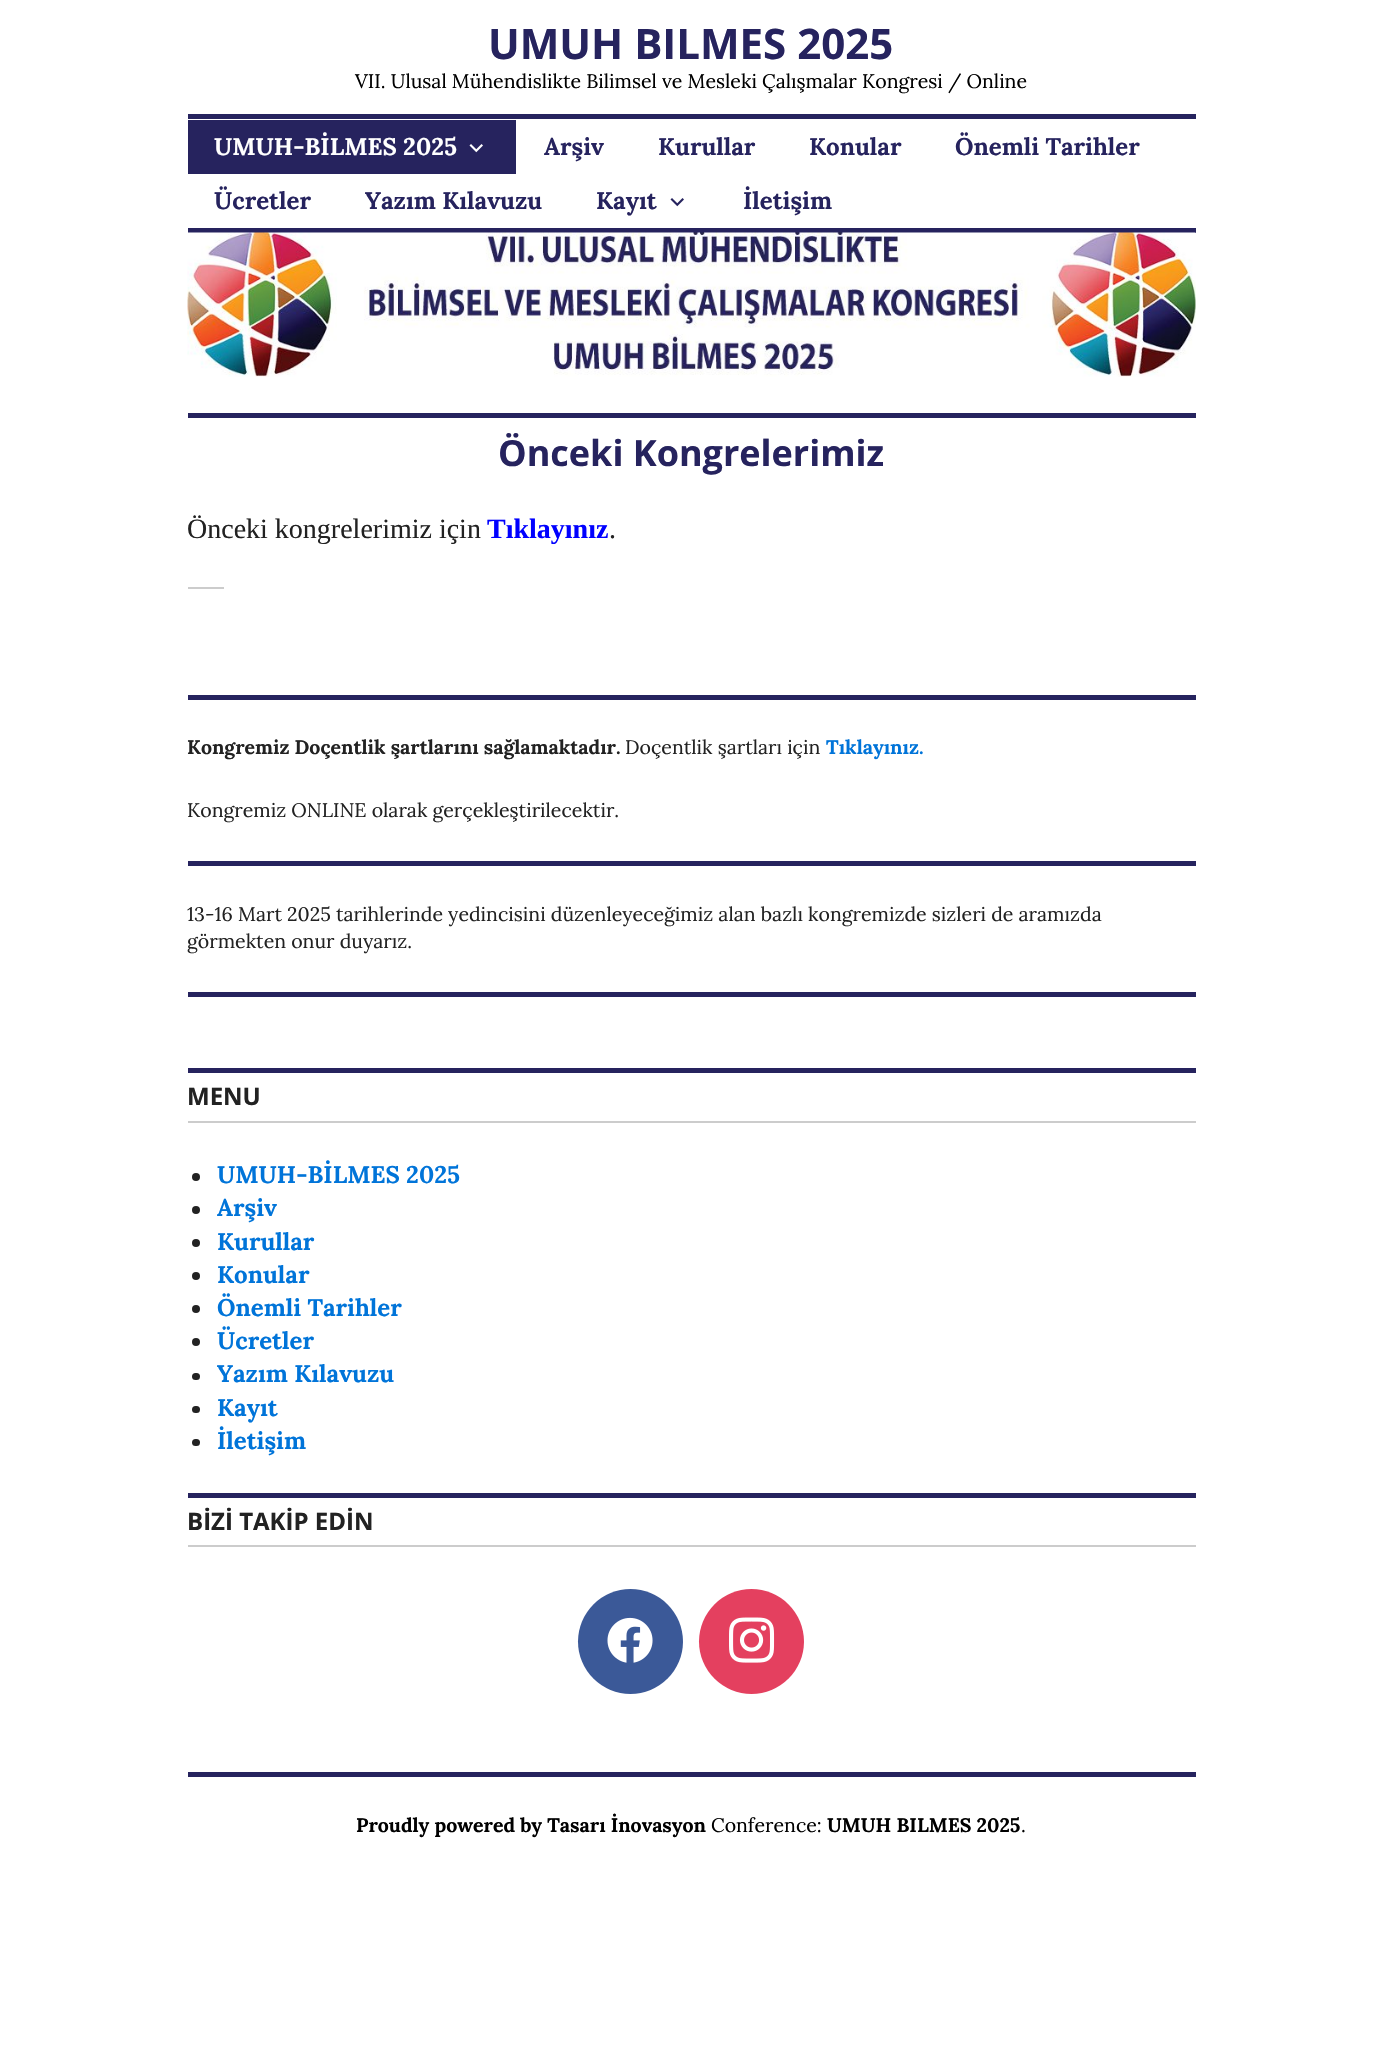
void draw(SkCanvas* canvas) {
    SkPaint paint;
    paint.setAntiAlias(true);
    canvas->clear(0xFFFFFFFF);
    SkFont font1(fontMgr->matchFamilyStyle("Open Sans", SkFontStyle::Bold()), 42);
    font1.setSubpixel(true);
    paint.setColor(0xFF26235E);
    canvas->drawString("UMUH BILMES 2025", 488, 59, font1, paint);
    SkFont font2(fontMgr->matchFamilyStyle("Lora", SkFontStyle::Normal()), 19.5f);
    font2.setSubpixel(true);
    paint.setColor(0xFF000000);
    canvas->drawString("VII. Ulusal Mühendislikte Bilimsel ve Mesleki Çalışmalar Kongresi / Online", 355, 88, font2, paint);
    paint.setColor(0xFF26235E);
    canvas->drawRect(SkRect::MakeXYWH(188, 114, 1008, 5), paint);
    canvas->drawRect(SkRect::MakeXYWH(188, 228, 1008, 5), paint);
    canvas->drawRect(SkRect::MakeXYWH(188, 120, 328, 54), paint);
    SkFont font3(fontMgr->matchFamilyStyle("Lora", SkFontStyle::Bold()), 24);
    font3.setSubpixel(true);
    paint.setColor(0xFFFFFFFF);
    canvas->drawString("UMUH-BİLMES 2025", 214, 155, font3, paint);
    canvas->drawImageRect(SkImages::DeferredFromEncodedData(SkData::MakeFromFileName("img1.png")), SkRect::MakeXYWH(469, 144, 14, 9), SkSamplingOptions());
    paint.setColor(0xFF26235E);
    canvas->drawString("Arşiv", 544, 155, font3, paint);
    canvas->drawString("Kurullar", 658, 155, font3, paint);
    canvas->drawString("Konular", 809, 155, font3, paint);
    canvas->drawString("Önemli Tarihler", 955, 155, font3, paint);
    canvas->drawString("Ücretler", 214, 209, font3, paint);
    canvas->drawString("Yazım Kılavuzu", 365, 209, font3, paint);
    canvas->drawString("Kayıt", 596, 209, font3, paint);
    canvas->drawImageRect(SkImages::DeferredFromEncodedData(SkData::MakeFromFileName("img2.png")), SkRect::MakeXYWH(670, 198, 14, 9), SkSamplingOptions());
    canvas->drawString("İletişim", 743, 209, font3, paint);
    canvas->drawImageRect(SkImages::DeferredFromEncodedData(SkData::MakeFromFileName("img3.png")), SkRect::MakeXYWH(187, 232, 1009, 145), SkSamplingOptions());
    canvas->drawRect(SkRect::MakeXYWH(188, 413, 1008, 5), paint);
    SkFont font4(fontMgr->matchFamilyStyle("Open Sans", SkFontStyle::Bold()), 36);
    font4.setSubpixel(true);
    canvas->drawString("Önceki Kongrelerimiz", 498, 466, font4, paint);
    SkFont font5(fontMgr->matchFamilyStyle("Liberation Serif", SkFontStyle::Normal()), 28);
    font5.setSubpixel(true);
    paint.setColor(0xFF222222);
    canvas->drawString("Önceki kongrelerimiz için", 187, 538, font5, paint);
    SkFont font6(fontMgr->matchFamilyStyle("Liberation Serif", SkFontStyle::Bold()), 28);
    font6.setSubpixel(true);
    paint.setColor(0xFF0000FF);
    canvas->drawString("Tıklayınız", 487, 538, font6, paint);
    paint.setColor(0xFF222222);
    canvas->drawString(".", 609, 538, font5, paint);
    paint.setColor(0xFFCCCCCC);
    canvas->drawRect(SkRect::MakeXYWH(188, 587, 36, 2), paint);
    paint.setColor(0xFF26235E);
    canvas->drawRect(SkRect::MakeXYWH(188, 695, 1008, 5), paint);
    SkFont font7(fontMgr->matchFamilyStyle("Lora", SkFontStyle::Bold()), 19.5f);
    font7.setSubpixel(true);
    paint.setColor(0xFF222222);
    canvas->drawString("Kongremiz Doçentlik şartlarını sağlamaktadır.", 187, 754, font7, paint);
    canvas->drawString("Doçentlik şartları için", 625, 754, font2, paint);
    paint.setColor(0xFF0074D9);
    canvas->drawString("Tıklayınız.", 826, 754, font7, paint);
    paint.setColor(0xFF222222);
    canvas->drawString("Kongremiz ONLINE olarak gerçekleştirilecektir.", 187, 817, font2, paint);
    paint.setColor(0xFF26235E);
    canvas->drawRect(SkRect::MakeXYWH(188, 861, 1008, 5), paint);
    paint.setColor(0xFF222222);
    canvas->drawString("13-16 Mart 2025 tarihlerinde yedincisini düzenleyeceğimiz alan bazlı kongremizde sizleri de aramızda", 187, 921, font2, paint);
    canvas->drawString("görmekten onur duyarız.", 187, 948, font2, paint);
    paint.setColor(0xFF26235E);
    canvas->drawRect(SkRect::MakeXYWH(188, 992, 1008, 5), paint);
    canvas->drawRect(SkRect::MakeXYWH(188, 1068, 1008, 5), paint);
    paint.setColor(0xFFCCCCCC);
    canvas->drawRect(SkRect::MakeXYWH(188, 1121, 1008, 2), paint);
    SkFont font8(fontMgr->matchFamilyStyle("Open Sans", SkFontStyle::Bold()), 24);
    font8.setSubpixel(true);
    paint.setColor(0xFF222222);
    canvas->drawString("MENU", 187, 1105, font8, paint);
    canvas->drawCircle(196, 1177, 4, paint);
    paint.setColor(0xFF0074D9);
    canvas->drawString("UMUH-BİLMES 2025", 217, 1183, font3, paint);
    paint.setColor(0xFF222222);
    canvas->drawCircle(196, 1210, 4, paint);
    paint.setColor(0xFF0074D9);
    canvas->drawString("Arşiv", 217, 1216, font3, paint);
    paint.setColor(0xFF222222);
    canvas->drawCircle(196, 1243, 4, paint);
    paint.setColor(0xFF0074D9);
    canvas->drawString("Kurullar", 217, 1250, font3, paint);
    paint.setColor(0xFF222222);
    canvas->drawCircle(196, 1276, 4, paint);
    paint.setColor(0xFF0074D9);
    canvas->drawString("Konular", 217, 1283, font3, paint);
    paint.setColor(0xFF222222);
    canvas->drawCircle(196, 1309, 4, paint);
    paint.setColor(0xFF0074D9);
    canvas->drawString("Önemli Tarihler", 217, 1316, font3, paint);
    paint.setColor(0xFF222222);
    canvas->drawCircle(196, 1342, 4, paint);
    paint.setColor(0xFF0074D9);
    canvas->drawString("Ücretler", 217, 1349, font3, paint);
    paint.setColor(0xFF222222);
    canvas->drawRoundRect(SkRect::MakeXYWH(192, 1373, 8, 7), 3.5f, 3.5f, paint);
    paint.setColor(0xFF0074D9);
    canvas->drawString("Yazım Kılavuzu", 217, 1382, font3, paint);
    paint.setColor(0xFF222222);
    canvas->drawRoundRect(SkRect::MakeXYWH(192, 1406, 8, 7), 3.5f, 3.5f, paint);
    paint.setColor(0xFF0074D9);
    canvas->drawString("Kayıt", 217, 1416, font3, paint);
    paint.setColor(0xFF222222);
    canvas->drawRoundRect(SkRect::MakeXYWH(192, 1439, 8, 7), 3.5f, 3.5f, paint);
    paint.setColor(0xFF0074D9);
    canvas->drawString("İletişim", 217, 1449, font3, paint);
    paint.setColor(0xFF26235E);
    canvas->drawRect(SkRect::MakeXYWH(188, 1493, 1008, 5), paint);
    paint.setColor(0xFFCCCCCC);
    canvas->drawRect(SkRect::MakeXYWH(188, 1545, 1008, 2), paint);
    paint.setColor(0xFF222222);
    canvas->drawString("BİZİ TAKİP EDİN", 187, 1530, font8, paint);
    paint.setColor(0xFF3B5998);
    canvas->drawCircle(630.5f, 1641.5f, 52.5f, paint);
    canvas->drawImageRect(SkImages::DeferredFromEncodedData(SkData::MakeFromFileName("img4.png")), SkRect::MakeXYWH(607, 1617, 46, 46), SkSamplingOptions());
    paint.setColor(0xFFE4405F);
    canvas->drawCircle(751.5f, 1641.5f, 52.5f, paint);
    canvas->drawImageRect(SkImages::DeferredFromEncodedData(SkData::MakeFromFileName("img5.png")), SkRect::MakeXYWH(729, 1617, 46, 46), SkSamplingOptions());
    paint.setColor(0xFF26235E);
    canvas->drawRect(SkRect::MakeXYWH(188, 1772, 1008, 5), paint);
    paint.setColor(0xFF000000);
    canvas->drawString("Proudly powered by Tasarı İnovasyon", 356, 1832, font7, paint);
    canvas->drawString("Conference:", 711, 1832, font2, paint);
    canvas->drawString("UMUH BILMES 2025", 827, 1832, font7, paint);
    canvas->drawString(".", 1021, 1832, font2, paint);
}
